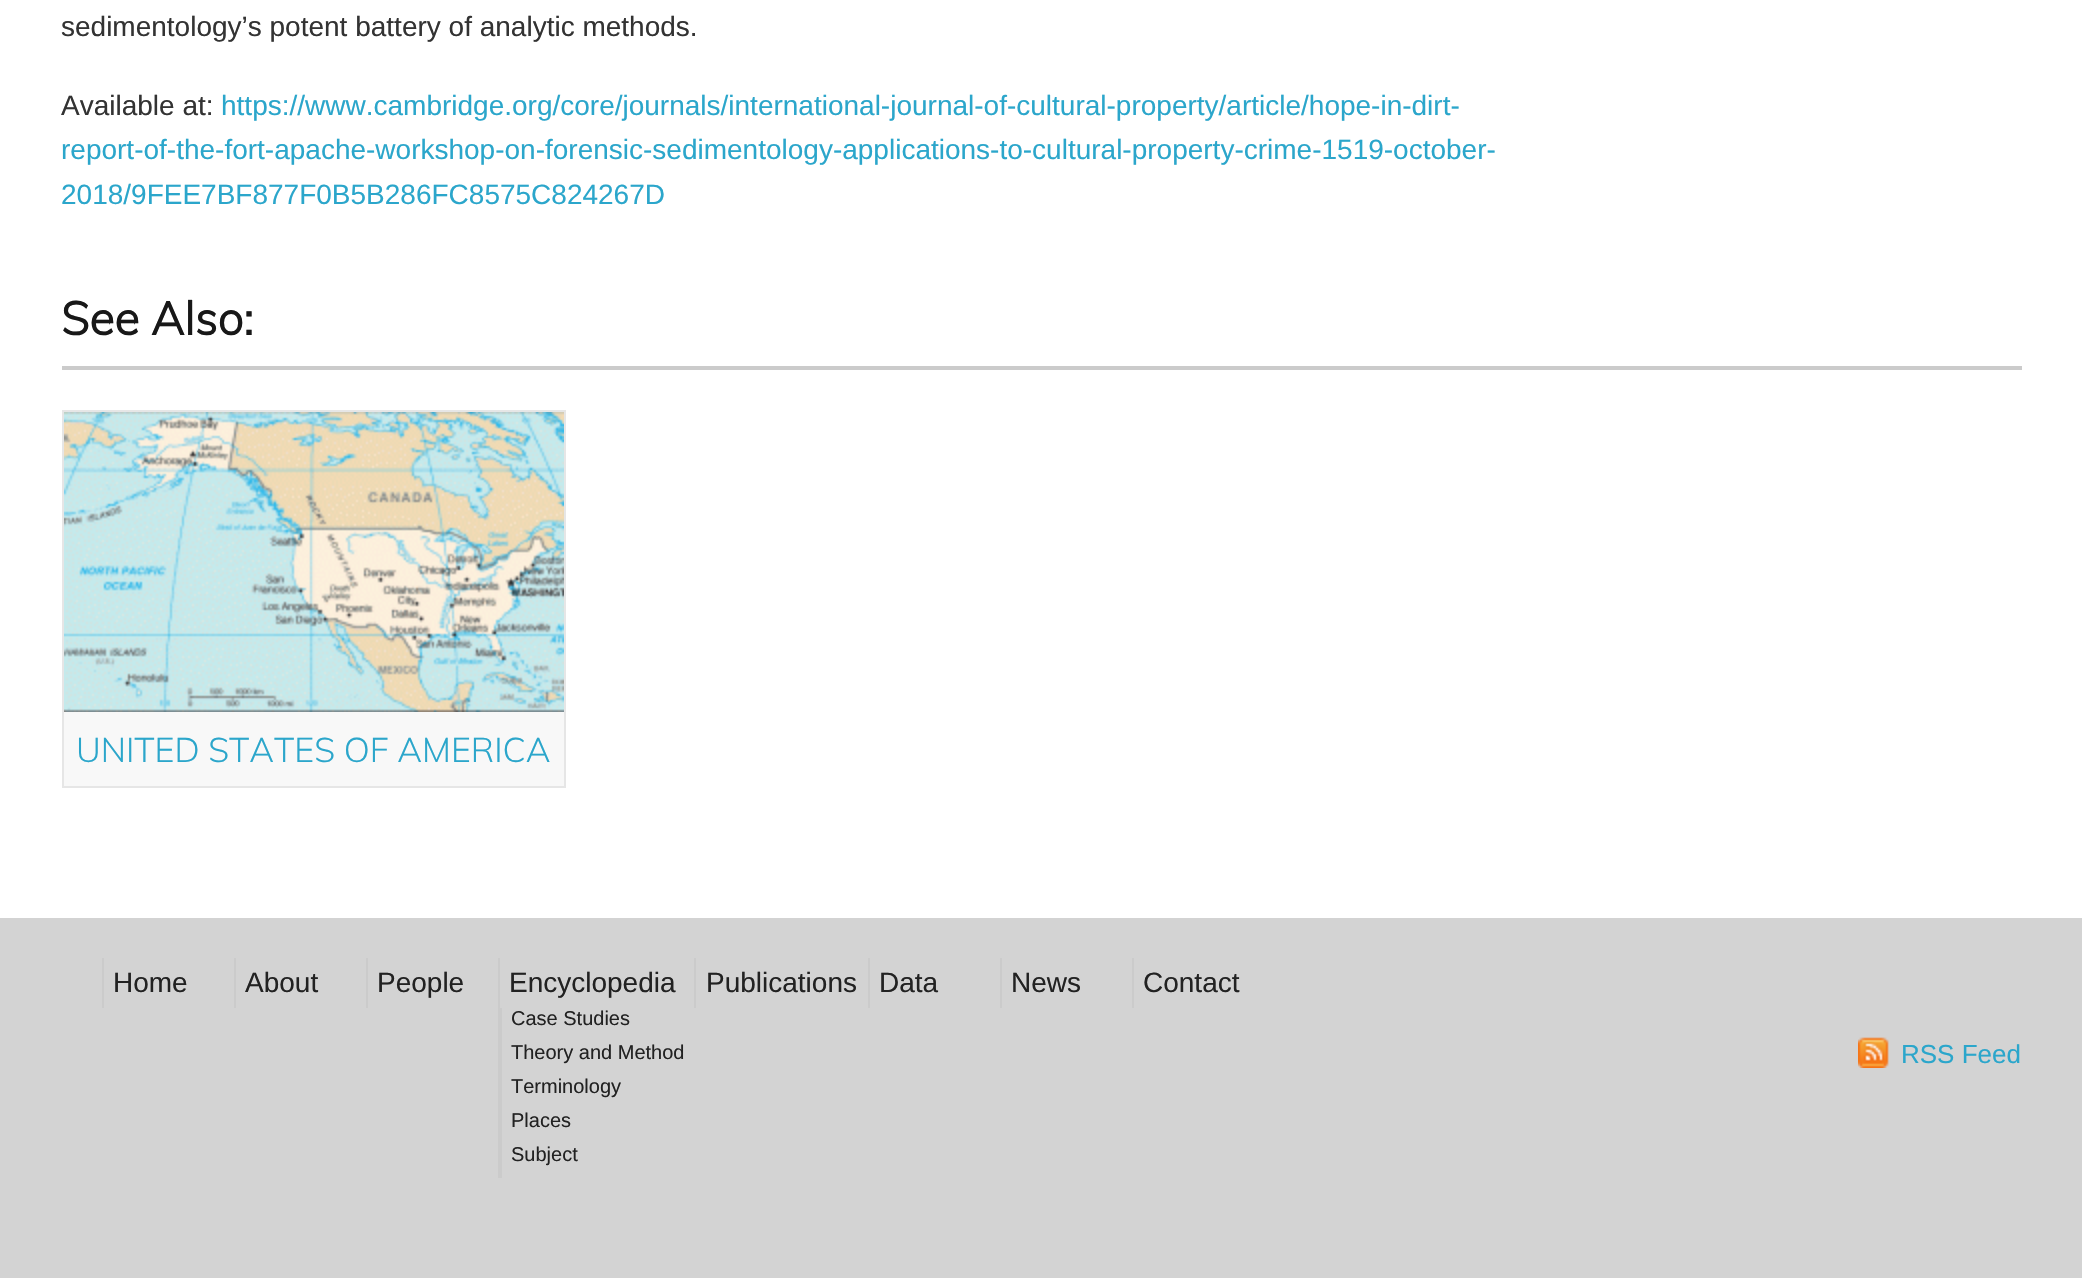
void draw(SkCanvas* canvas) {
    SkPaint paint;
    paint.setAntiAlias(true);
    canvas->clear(0xFFFFFFFF);
    SkFont font1(fontMgr->matchFamilyStyle("Liberation Sans", SkFontStyle::Normal()), 28);
    font1.setSubpixel(true);
    paint.setColor(0xFF333333);
    canvas->drawString("sedimentology’s potent battery of analytic methods.", 61, 36, font1, paint);
    canvas->drawString("Available at:", 61, 115, font1, paint);
    paint.setColor(0xFF2BA6CB);
    canvas->drawString("https://www.cambridge.org/core/journals/international-journal-of-cultural-property/article/hope-in-dirt-", 221, 115, font1, paint);
    canvas->drawString("report-of-the-fort-apache-workshop-on-forensic-sedimentology-applications-to-cultural-property-crime-1519-october-", 61, 159, font1, paint);
    canvas->drawString("2018/9FEE7BF877F0B5B286FC8575C824267D", 61, 204, font1, paint);
    SkFont font2(fontMgr->matchFamilyStyle("Muli", SkFontStyle::Bold()), 46);
    font2.setSubpixel(true);
    paint.setColor(0xFF181818);
    canvas->drawString("See Also:", 61, 335, font2, paint);
    paint.setColor(0xFFCBCBCB);
    canvas->drawRect(SkRect::MakeXYWH(62, 366, 1960, 4), paint);
    paint.setStyle(SkPaint::kStroke_Style);
    paint.setStrokeWidth(2);
    paint.setColor(0xFFE6E6E6);
    canvas->drawRect(SkRect::MakeXYWH(63, 411, 502, 376), paint);
    canvas->drawImageRect(SkImages::DeferredFromEncodedData(SkData::MakeFromFileName("img1.png")), SkRect::MakeXYWH(64, 412, 500, 300), SkSamplingOptions());
    paint.setStyle(SkPaint::kFill_Style);
    paint.setColor(0xFFF8F8F8);
    canvas->drawRect(SkRect::MakeXYWH(64, 712, 500, 74), paint);
    SkFont font3(fontMgr->matchFamilyStyle("Muli", SkFontStyle(300, SkFontStyle::kNormal_Width, SkFontStyle::kUpright_Slant)), 34);
    font3.setSubpixel(true);
    paint.setColor(0xFF2BA6CB);
    canvas->drawString("UNITED STATES OF AMERICA", 76, 762, font3, paint);
    paint.setColor(0xFFD3D3D3);
    canvas->drawRect(SkRect::MakeXYWH(0, 918, 2082, 360), paint);
    paint.setColor(0xFFCBCBCB);
    canvas->drawRect(SkRect::MakeXYWH(102, 958, 2, 50), paint);
    paint.setColor(0xFF222222);
    canvas->drawString("Home", 113, 992, font1, paint);
    paint.setColor(0xFFCBCBCB);
    canvas->drawRect(SkRect::MakeXYWH(234, 958, 2, 50), paint);
    paint.setColor(0xFF222222);
    canvas->drawString("About", 245, 992, font1, paint);
    paint.setColor(0xFFCBCBCB);
    canvas->drawRect(SkRect::MakeXYWH(366, 958, 2, 50), paint);
    paint.setColor(0xFF222222);
    canvas->drawString("People", 377, 992, font1, paint);
    paint.setColor(0xFFCBCBCB);
    canvas->drawRect(SkRect::MakeXYWH(498, 958, 2, 220), paint);
    paint.setColor(0xFF222222);
    canvas->drawString("Encyclopedia", 509, 992, font1, paint);
    paint.setColor(0xFFCBCBCB);
    canvas->drawRect(SkRect::MakeXYWH(500, 1008, 2, 170), paint);
    SkFont font4(fontMgr->matchFamilyStyle("Liberation Sans", SkFontStyle::Normal()), 20);
    font4.setSubpixel(true);
    paint.setColor(0xFF222222);
    canvas->drawString("Case Studies", 511, 1025, font4, paint);
    canvas->drawString("Theory and Method", 511, 1059, font4, paint);
    canvas->drawString("Terminology", 511, 1093, font4, paint);
    canvas->drawString("Places", 511, 1127, font4, paint);
    canvas->drawString("Subject", 511, 1161, font4, paint);
    paint.setColor(0xFFCBCBCB);
    canvas->drawRect(SkRect::MakeXYWH(694, 958, 2, 50), paint);
    paint.setColor(0xFF222222);
    canvas->drawString("Publications", 706, 992, font1, paint);
    paint.setColor(0xFFCBCBCB);
    canvas->drawRect(SkRect::MakeXYWH(868, 958, 2, 50), paint);
    paint.setColor(0xFF222222);
    canvas->drawString("Data", 879, 992, font1, paint);
    paint.setColor(0xFFCBCBCB);
    canvas->drawRect(SkRect::MakeXYWH(1000, 958, 2, 50), paint);
    paint.setColor(0xFF222222);
    canvas->drawString("News", 1011, 992, font1, paint);
    paint.setColor(0xFFCBCBCB);
    canvas->drawRect(SkRect::MakeXYWH(1132, 958, 2, 50), paint);
    paint.setColor(0xFF222222);
    canvas->drawString("Contact", 1143, 992, font1, paint);
    canvas->drawImageRect(SkImages::DeferredFromEncodedData(SkData::MakeFromFileName("img2.png")), SkRect::MakeXYWH(1858, 1037, 31, 31), SkSamplingOptions());
    SkFont font5(fontMgr->matchFamilyStyle("Liberation Sans", SkFontStyle::Normal()), 26);
    font5.setSubpixel(true);
    paint.setColor(0xFF2BA6CB);
    canvas->drawString("RSS Feed", 1901, 1063, font5, paint);
}
